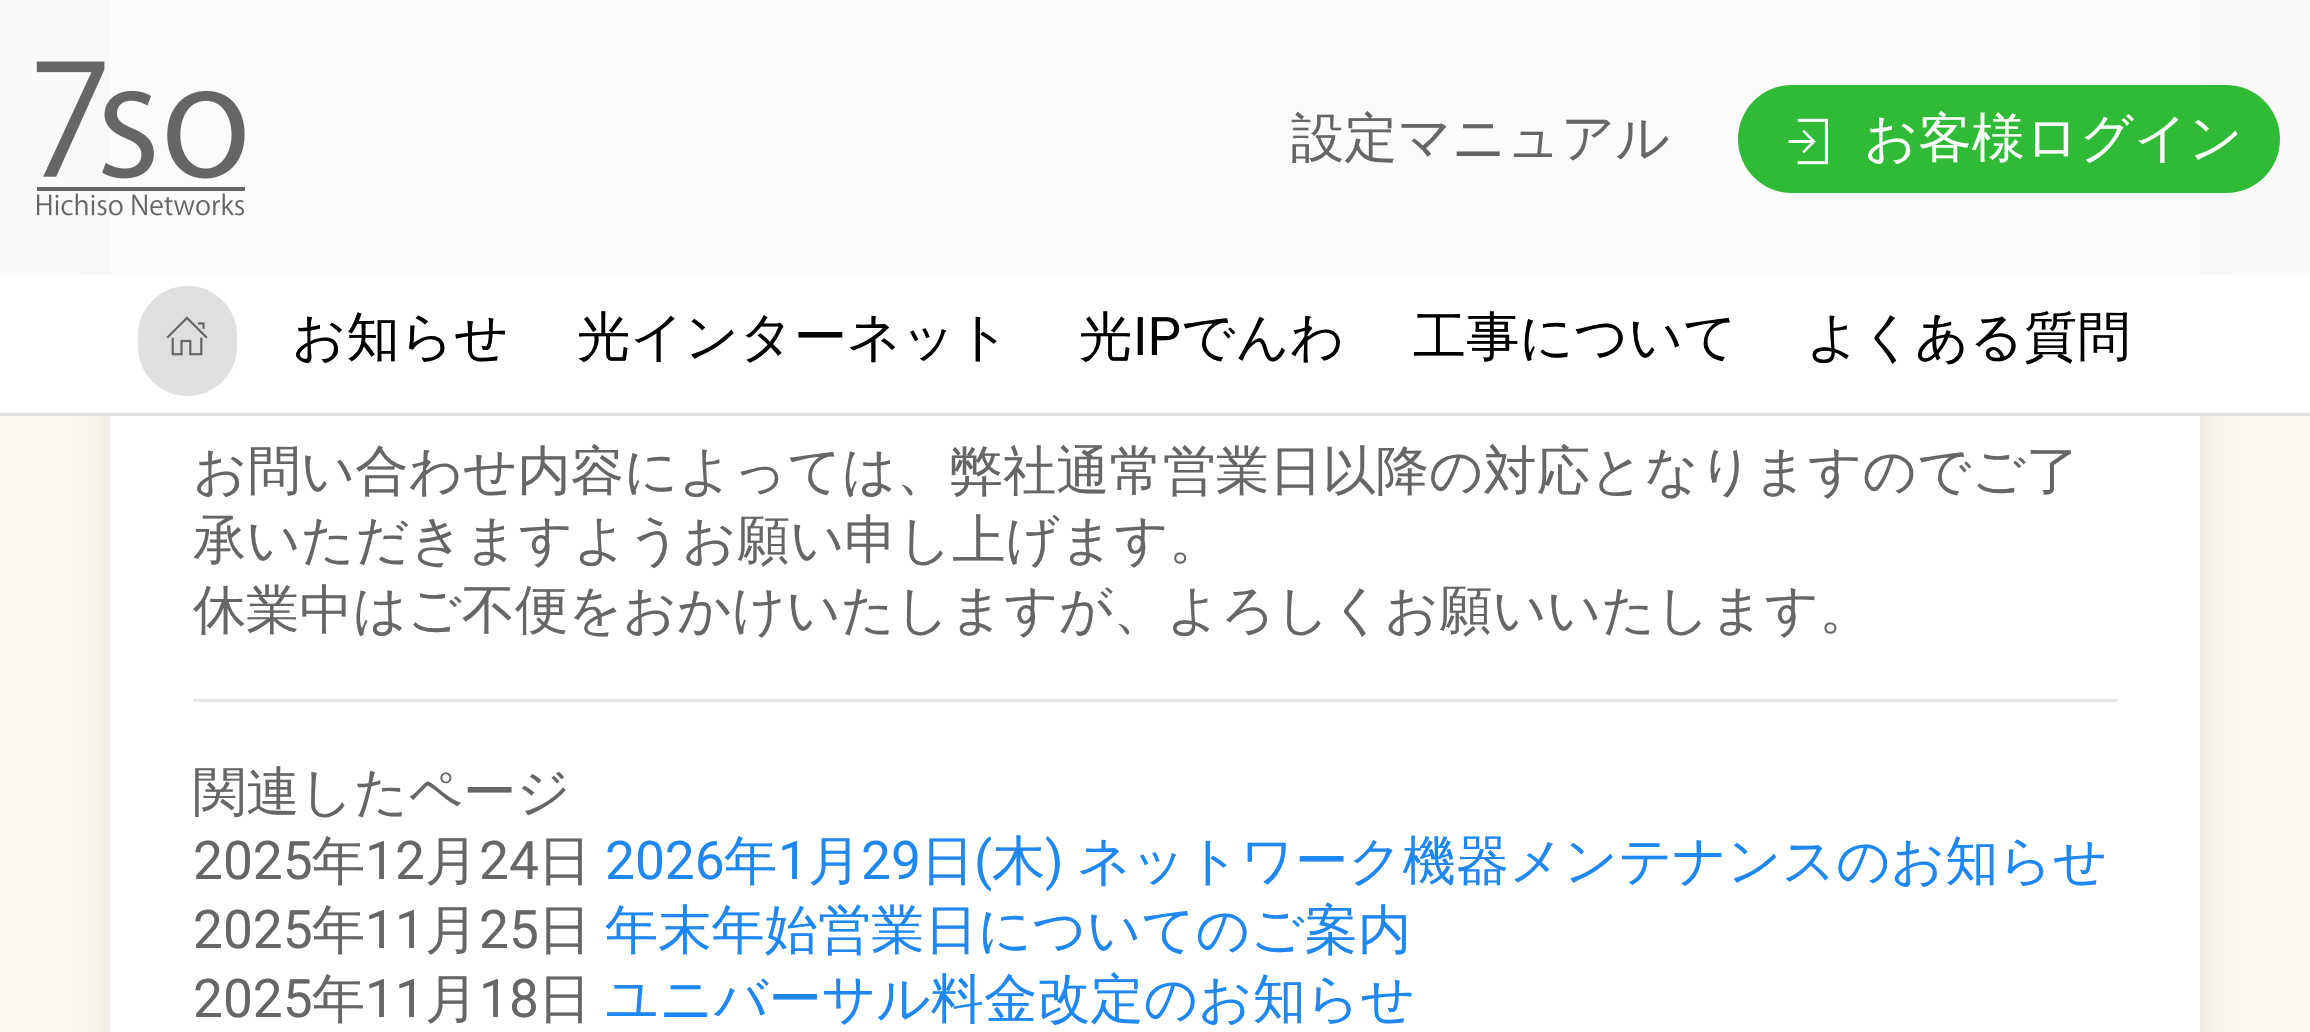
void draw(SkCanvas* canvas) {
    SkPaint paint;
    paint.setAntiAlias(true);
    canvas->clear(0xFFFBF8F1);
    paint.setColor(0x14000000);
    paint.setMaskFilter(SkMaskFilter::MakeBlur(kNormal_SkBlurStyle, 20.5f));
    canvas->drawRect(SkRect::MakeXYWH(110, -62, 2090, 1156), paint);
    paint.setMaskFilter(nullptr);
    paint.setColor(0xFFFFFFFF);
    canvas->drawRect(SkRect::MakeXYWH(110, 0, 2090, 1032), paint);
    paint.setColor(0xCCFAFAFA);
    canvas->drawRect(SkRect::MakeXYWH(0, 0, 2310, 275), paint);
    canvas->drawImageRect(SkImages::DeferredFromEncodedData(SkData::MakeFromFileName("img1.png")), SkRect::MakeXYWH(36, 61, 209, 155), SkSamplingOptions());
    SkFont font1(fontMgr->matchFamilyStyle("WenQuanYi Zen Hei", SkFontStyle(500, SkFontStyle::kNormal_Width, SkFontStyle::kUpright_Slant)), 53.25f);
    font1.setSubpixel(true);
    paint.setColor(0xFF666666);
    canvas->drawString("設定マニュアル", 1291, 156, font1, paint);
    paint.setColor(0xFF2FBB36);
    canvas->drawRoundRect(SkRect::MakeXYWH(1738, 85, 542, 108), 54, 54, paint);
    canvas->drawImageRect(SkImages::DeferredFromEncodedData(SkData::MakeFromFileName("img2.png")), SkRect::MakeXYWH(1788, 118, 40, 47), SkSamplingOptions());
    paint.setColor(0xFFFCFCFC);
    canvas->drawString("お客様ログイン", 1864, 156, font1, paint);
    paint.setColor(0xFFFFFFFF);
    canvas->drawRect(SkRect::MakeXYWH(0, 275, 2310, 138), paint);
    paint.setColor(0xFFE0E0E0);
    canvas->drawRect(SkRect::MakeXYWH(0, 413, 2310, 3), paint);
    paint.setColor(0xFFDFDFDF);
    canvas->drawRoundRect(SkRect::MakeXYWH(138, 286, 99, 110), 49.5f, 49.5f, paint);
    canvas->drawImageRect(SkImages::DeferredFromEncodedData(SkData::MakeFromFileName("img3.png")), SkRect::MakeXYWH(166, 316, 42, 40), SkSamplingOptions());
    paint.setColor(0xFF000000);
    canvas->drawString("お知らせ", 292, 355, font1, paint);
    canvas->drawString("光インターネット", 577, 355, font1, paint);
    canvas->drawString("光", 1079, 355, font1, paint);
    SkFont font2(fontMgr->matchFamilyStyle("Roboto", SkFontStyle::Normal()), 53.25f);
    font2.setSubpixel(true);
    canvas->drawString("IP", 1133, 355, font2, paint);
    canvas->drawString("でんわ", 1181, 355, font1, paint);
    canvas->drawString("工事について", 1413, 355, font1, paint);
    canvas->drawString("よくある質問", 1806, 355, font1, paint);
    paint.setColor(0xFF666666);
    canvas->drawString("お問い合わせ内容によっては、弊社通常営業日以降の対応となりますのでご了", 193, 489, font1, paint);
    canvas->drawString("承いただきますようお願い申し上げます。", 193, 558, font1, paint);
    canvas->drawString("休業中はご不便をおかけいたしますが、よろしくお願いいたします。", 193, 628, font1, paint);
    paint.setColor(0xFFE5E5E5);
    canvas->drawRect(SkRect::MakeXYWH(193, 699, 1925, 3), paint);
    paint.setColor(0xFF666666);
    canvas->drawString("関連したページ", 193, 810, font1, paint);
    canvas->drawString("2025", 193, 879, font2, paint);
    canvas->drawString("年", 312, 879, font1, paint);
    canvas->drawString("12", 365, 879, font2, paint);
    canvas->drawString("月", 425, 879, font1, paint);
    canvas->drawString("24", 479, 879, font2, paint);
    canvas->drawString("日", 538, 879, font1, paint);
    paint.setColor(0xFF1E87F0);
    canvas->drawString("2026", 605, 879, font2, paint);
    canvas->drawString("年", 724, 879, font1, paint);
    canvas->drawString("1", 778, 879, font2, paint);
    canvas->drawString("月", 808, 879, font1, paint);
    canvas->drawString("29", 861, 879, font2, paint);
    canvas->drawString("日", 921, 879, font1, paint);
    canvas->drawString("(", 974, 879, font2, paint);
    canvas->drawString("木", 992, 879, font1, paint);
    canvas->drawString(")", 1045, 879, font2, paint);
    canvas->drawString("ネットワーク機器メンテナンスのお知らせ", 1077, 879, font1, paint);
    paint.setColor(0xFF666666);
    canvas->drawString("2025", 193, 948, font2, paint);
    canvas->drawString("年", 312, 948, font1, paint);
    canvas->drawString("11", 365, 948, font2, paint);
    canvas->drawString("月", 425, 948, font1, paint);
    canvas->drawString("25", 479, 948, font2, paint);
    canvas->drawString("日", 538, 948, font1, paint);
    paint.setColor(0xFF1E87F0);
    canvas->drawString("年末年始営業日についてのご案内", 605, 948, font1, paint);
    paint.setColor(0xFF666666);
    canvas->drawString("2025", 193, 1017, font2, paint);
    canvas->drawString("年", 312, 1017, font1, paint);
    canvas->drawString("11", 365, 1017, font2, paint);
    canvas->drawString("月", 425, 1017, font1, paint);
    canvas->drawString("18", 479, 1017, font2, paint);
    canvas->drawString("日", 538, 1017, font1, paint);
    paint.setColor(0xFF1E87F0);
    canvas->drawString("ユニバーサル料金改定のお知らせ", 605, 1017, font1, paint);
}
